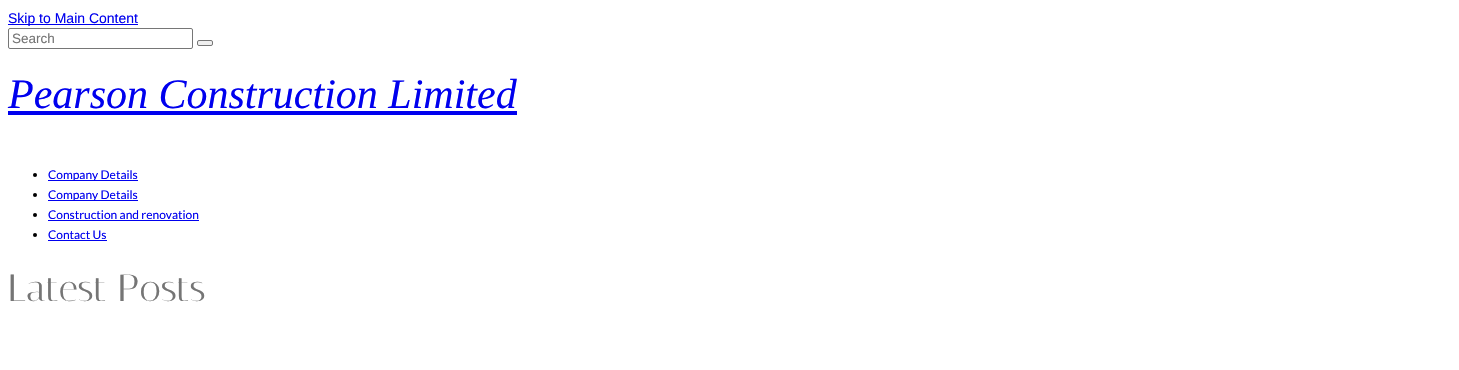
void draw(SkCanvas* canvas) {
    SkPaint paint;
    paint.setAntiAlias(true);
    canvas->clear(0xFFFFFFFF);
    paint.setColor(0xFF0000EE);
    canvas->drawRect(SkRect::MakeXYWH(8, 24, 130, 1), paint);
    SkFont font1(fontMgr->matchFamilyStyle("Liberation Sans", SkFontStyle::Normal()), 14);
    font1.setSubpixel(true);
    canvas->drawString("Skip to Main Content", 8, 23, font1, paint);
    paint.setStyle(SkPaint::kStroke_Style);
    paint.setStrokeWidth(1);
    paint.setColor(0xFF767676);
    canvas->drawRoundRect(SkRect::MakeXYWH(8.5f, 28.5f, 184, 20), 1.5f, 1.5f, paint);
    SkFont font2(fontMgr->matchFamilyStyle("Liberation Sans", SkFontStyle::Normal()), 13.5f);
    font2.setSubpixel(true);
    paint.setStyle(SkPaint::kFill_Style);
    paint.setColor(0xFF757575);
    canvas->drawString("Search", 12, 43, font2, paint);
    paint.setColor(0xFFEFEFEF);
    canvas->drawRoundRect(SkRect::MakeXYWH(197.5f, 40.5f, 15, 5), 1.5f, 1.5f, paint);
    paint.setStyle(SkPaint::kStroke_Style);
    paint.setColor(0xFF767676);
    canvas->drawRoundRect(SkRect::MakeXYWH(197.5f, 40.5f, 15, 5), 1.5f, 1.5f, paint);
    SkFont font3(fontMgr->matchFamilyStyle("Liberation Serif", SkFontStyle::Italic()), 42);
    font3.setSubpixel(true);
    paint.setStyle(SkPaint::kFill_Style);
    paint.setColor(0xFF0000EE);
    canvas->drawString("Pearson Construction Limited", 8, 108, font3, paint);
    canvas->drawRect(SkRect::MakeXYWH(8, 111, 509, 4), paint);
    paint.setColor(0xFF000000);
    canvas->drawCircle(35, 175, 2, paint);
    paint.setColor(0xFF0000EE);
    canvas->drawRect(SkRect::MakeXYWH(48, 180, 90, 1), paint);
    SkFont font4(fontMgr->matchFamilyStyle("Lato", SkFontStyle::Normal()), 12);
    font4.setSubpixel(true);
    canvas->drawString("Company Details", 48, 179, font4, paint);
    paint.setColor(0xFF000000);
    canvas->drawCircle(35, 195, 2, paint);
    paint.setColor(0xFF0000EE);
    canvas->drawRect(SkRect::MakeXYWH(48, 200, 90, 1), paint);
    canvas->drawString("Company Details", 48, 199, font4, paint);
    paint.setColor(0xFF000000);
    canvas->drawCircle(35, 215, 2, paint);
    paint.setColor(0xFF0000EE);
    canvas->drawString("Construction and renovation", 48, 219, font4, paint);
    canvas->drawRect(SkRect::MakeXYWH(48, 220, 151, 1), paint);
    paint.setColor(0xFF000000);
    canvas->drawCircle(35, 235, 2, paint);
    paint.setColor(0xFF0000EE);
    canvas->drawString("Contact Us", 48, 239, font4, paint);
    canvas->drawRect(SkRect::MakeXYWH(48, 240, 59, 1), paint);
    SkFont font5(fontMgr->matchFamilyStyle("Italiana", SkFontStyle::Normal()), 38);
    font5.setSubpixel(true);
    paint.setColor(0xFF757575);
    canvas->drawString("Latest Posts", 8, 301, font5, paint);
}
